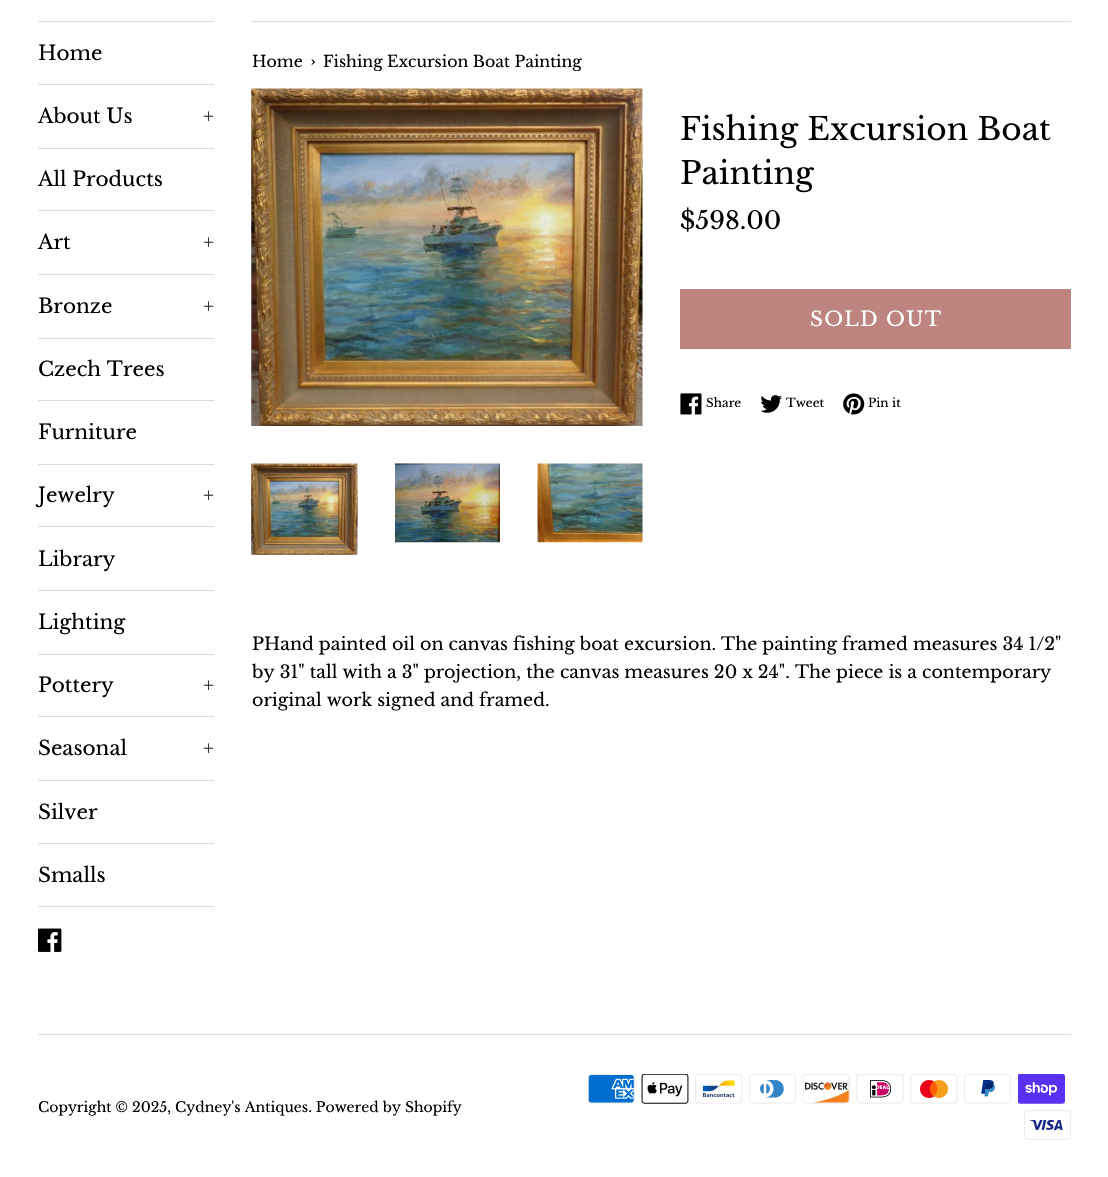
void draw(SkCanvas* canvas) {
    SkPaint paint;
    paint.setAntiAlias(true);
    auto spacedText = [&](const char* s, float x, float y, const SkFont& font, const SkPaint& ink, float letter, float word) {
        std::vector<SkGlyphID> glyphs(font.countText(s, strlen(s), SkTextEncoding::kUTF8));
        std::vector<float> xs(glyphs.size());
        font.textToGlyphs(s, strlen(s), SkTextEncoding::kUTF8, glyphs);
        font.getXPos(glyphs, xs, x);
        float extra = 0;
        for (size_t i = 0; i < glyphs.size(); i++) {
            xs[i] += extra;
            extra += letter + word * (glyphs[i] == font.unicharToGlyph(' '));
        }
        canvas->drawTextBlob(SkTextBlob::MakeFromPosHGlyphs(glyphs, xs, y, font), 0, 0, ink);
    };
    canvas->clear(0xFFFFFFFF);
    paint.setColor(0xFFDADADA);
    canvas->drawRect(SkRect::MakeXYWH(38, 21, 176, 1), paint);
    canvas->drawRect(SkRect::MakeXYWH(38, 84, 176, 1), paint);
    SkFont font1(fontMgr->matchFamilyStyle("Libre Baskerville", SkFontStyle::Normal()), 20);
    font1.setSubpixel(true);
    paint.setColor(0xFF000000);
    canvas->drawString("Home", 38, 60, font1, paint);
    paint.setColor(0xFFDADADA);
    canvas->drawRect(SkRect::MakeXYWH(38, 148, 176, 1), paint);
    paint.setColor(0xFF000000);
    canvas->drawString("About Us", 38, 123, font1, paint);
    paint.setColor(0xFF333333);
    canvas->drawString("+", 203, 123, font1, paint);
    paint.setColor(0xFFDADADA);
    canvas->drawRect(SkRect::MakeXYWH(38, 210, 176, 1), paint);
    paint.setColor(0xFF000000);
    canvas->drawString("All Products", 38, 186, font1, paint);
    paint.setColor(0xFFDADADA);
    canvas->drawRect(SkRect::MakeXYWH(38, 274, 176, 1), paint);
    paint.setColor(0xFF000000);
    canvas->drawString("Art", 38, 249, font1, paint);
    paint.setColor(0xFF333333);
    canvas->drawString("+", 203, 249, font1, paint);
    paint.setColor(0xFFDADADA);
    canvas->drawRect(SkRect::MakeXYWH(38, 338, 176, 1), paint);
    paint.setColor(0xFF000000);
    canvas->drawString("Bronze", 38, 313, font1, paint);
    paint.setColor(0xFF333333);
    canvas->drawString("+", 203, 313, font1, paint);
    paint.setColor(0xFFDADADA);
    canvas->drawRect(SkRect::MakeXYWH(38, 400, 176, 1), paint);
    paint.setColor(0xFF000000);
    canvas->drawString("Czech Trees", 38, 376, font1, paint);
    paint.setColor(0xFFDADADA);
    canvas->drawRect(SkRect::MakeXYWH(38, 464, 176, 1), paint);
    paint.setColor(0xFF000000);
    canvas->drawString("Furniture", 38, 439, font1, paint);
    paint.setColor(0xFFDADADA);
    canvas->drawRect(SkRect::MakeXYWH(38, 526, 176, 1), paint);
    paint.setColor(0xFF000000);
    canvas->drawString("Jewelry", 38, 502, font1, paint);
    paint.setColor(0xFF333333);
    canvas->drawString("+", 203, 502, font1, paint);
    paint.setColor(0xFFDADADA);
    canvas->drawRect(SkRect::MakeXYWH(38, 590, 176, 1), paint);
    paint.setColor(0xFF000000);
    canvas->drawString("Library", 38, 566, font1, paint);
    paint.setColor(0xFFDADADA);
    canvas->drawRect(SkRect::MakeXYWH(38, 654, 176, 1), paint);
    paint.setColor(0xFF000000);
    canvas->drawString("Lighting", 38, 629, font1, paint);
    paint.setColor(0xFFDADADA);
    canvas->drawRect(SkRect::MakeXYWH(38, 716, 176, 1), paint);
    paint.setColor(0xFF000000);
    canvas->drawString("Pottery", 38, 692, font1, paint);
    paint.setColor(0xFF333333);
    canvas->drawString("+", 203, 692, font1, paint);
    paint.setColor(0xFFDADADA);
    canvas->drawRect(SkRect::MakeXYWH(38, 780, 176, 1), paint);
    paint.setColor(0xFF000000);
    canvas->drawString("Seasonal", 38, 755, font1, paint);
    paint.setColor(0xFF333333);
    canvas->drawString("+", 203, 755, font1, paint);
    paint.setColor(0xFFDADADA);
    canvas->drawRect(SkRect::MakeXYWH(38, 843, 176, 1), paint);
    paint.setColor(0xFF000000);
    canvas->drawString("Silver", 38, 819, font1, paint);
    paint.setColor(0xFFDADADA);
    canvas->drawRect(SkRect::MakeXYWH(38, 906, 176, 1), paint);
    paint.setColor(0xFF000000);
    canvas->drawString("Smalls", 38, 882, font1, paint);
    canvas->drawImageRect(SkImages::DeferredFromEncodedData(SkData::MakeFromFileName("img1.png")), SkRect::MakeXYWH(38, 928, 24, 24), SkSamplingOptions());
    paint.setColor(0xFFDADADA);
    canvas->drawRect(SkRect::MakeXYWH(251, 21, 820, 1), paint);
    SkFont font2(fontMgr->matchFamilyStyle("Libre Baskerville", SkFontStyle::Normal()), 15.75f);
    font2.setSubpixel(true);
    paint.setColor(0xFF000000);
    canvas->drawString("Home", 252, 67, font2, paint);
    SkFont font3(fontMgr->matchFamilyStyle("Libre Baskerville", SkFontStyle::Normal()), 19);
    font3.setSubpixel(true);
    canvas->drawString("›", 310, 67, font3, paint);
    canvas->drawString("Fishing Excursion Boat Painting", 323, 67, font2, paint);
    canvas->drawImageRect(SkImages::DeferredFromEncodedData(SkData::MakeFromFileName("img2.png")), SkRect::MakeXYWH(251, 88, 392, 338), SkSamplingOptions());
    canvas->drawImageRect(SkImages::DeferredFromEncodedData(SkData::MakeFromFileName("img3.png")), SkRect::MakeXYWH(251, 463, 107, 92), SkSamplingOptions());
    canvas->drawImageRect(SkImages::DeferredFromEncodedData(SkData::MakeFromFileName("img4.png")), SkRect::MakeXYWH(395, 463, 105, 80), SkSamplingOptions());
    canvas->drawImageRect(SkImages::DeferredFromEncodedData(SkData::MakeFromFileName("img5.png")), SkRect::MakeXYWH(537, 463, 106, 80), SkSamplingOptions());
    SkFont font4(fontMgr->matchFamilyStyle("Libre Baskerville", SkFontStyle::Normal()), 31.25f);
    font4.setSubpixel(true);
    canvas->drawString("Fishing Excursion Boat", 680, 140, font4, paint);
    canvas->drawString("Painting", 680, 184, font4, paint);
    SkFont font5(fontMgr->matchFamilyStyle("Libre Baskerville", SkFontStyle::Normal()), 24.5f);
    font5.setSubpixel(true);
    canvas->drawString("$598.00", 680, 229, font5, paint);
    paint.setColor(0xFFBD8480);
    canvas->drawRect(SkRect::MakeXYWH(680, 289, 391, 60), paint);
    paint.setColor(0xFFFFFFFF);
    spacedText("SOLD OUT", 810, 326, font1, paint, 1.25f, 0);
    canvas->drawImageRect(SkImages::DeferredFromEncodedData(SkData::MakeFromFileName("img6.png")), SkRect::MakeXYWH(680, 393, 22, 22), SkSamplingOptions());
    SkFont font6(fontMgr->matchFamilyStyle("Libre Baskerville", SkFontStyle::Normal()), 12);
    font6.setSubpixel(true);
    paint.setColor(0xFF000000);
    canvas->drawString("Share", 706, 407, font6, paint);
    canvas->drawImageRect(SkImages::DeferredFromEncodedData(SkData::MakeFromFileName("img7.png")), SkRect::MakeXYWH(760, 395, 22, 18), SkSamplingOptions());
    canvas->drawString("Tweet", 786, 407, font6, paint);
    canvas->drawImageRect(SkImages::DeferredFromEncodedData(SkData::MakeFromFileName("img8.png")), SkRect::MakeXYWH(843, 393, 22, 22), SkSamplingOptions());
    canvas->drawString("Pin it", 868, 407, font6, paint);
    SkFont font7(fontMgr->matchFamilyStyle("Libre Baskerville", SkFontStyle::Normal()), 17.5f);
    font7.setSubpixel(true);
    canvas->drawString("PHand painted oil on canvas fishing boat excursion. The painting framed measures 34 1/2\"", 252, 650, font7, paint);
    canvas->drawString("by 31\" tall with a 3\" projection, the canvas measures 20 x 24\". The piece is a contemporary", 252, 678, font7, paint);
    canvas->drawString("original work signed and framed.", 252, 706, font7, paint);
    paint.setColor(0xFFDADADA);
    canvas->drawRect(SkRect::MakeXYWH(38, 1034, 1033, 1), paint);
    SkFont font8(fontMgr->matchFamilyStyle("Libre Baskerville", SkFontStyle::Normal()), 14);
    font8.setSubpixel(true);
    paint.setColor(0xFF000000);
    canvas->drawString("Copyright © 2025, Cydney's Antiques. Powered by Shopify", 38, 1112, font8, paint);
    canvas->drawImageRect(SkImages::DeferredFromEncodedData(SkData::MakeFromFileName("img9.png")), SkRect::MakeXYWH(588, 1074, 47, 30), SkSamplingOptions());
    canvas->drawImageRect(SkImages::DeferredFromEncodedData(SkData::MakeFromFileName("img10.png")), SkRect::MakeXYWH(641, 1074, 48, 30), SkSamplingOptions());
    canvas->drawImageRect(SkImages::DeferredFromEncodedData(SkData::MakeFromFileName("img11.png")), SkRect::MakeXYWH(695, 1074, 48, 30), SkSamplingOptions());
    canvas->drawImageRect(SkImages::DeferredFromEncodedData(SkData::MakeFromFileName("img12.png")), SkRect::MakeXYWH(749, 1074, 47, 30), SkSamplingOptions());
    canvas->drawImageRect(SkImages::DeferredFromEncodedData(SkData::MakeFromFileName("img13.png")), SkRect::MakeXYWH(803, 1074, 47, 30), SkSamplingOptions());
    canvas->drawImageRect(SkImages::DeferredFromEncodedData(SkData::MakeFromFileName("img14.png")), SkRect::MakeXYWH(856, 1074, 48, 30), SkSamplingOptions());
    canvas->drawImageRect(SkImages::DeferredFromEncodedData(SkData::MakeFromFileName("img15.png")), SkRect::MakeXYWH(910, 1074, 48, 30), SkSamplingOptions());
    canvas->drawImageRect(SkImages::DeferredFromEncodedData(SkData::MakeFromFileName("img16.png")), SkRect::MakeXYWH(964, 1074, 47, 30), SkSamplingOptions());
    canvas->drawImageRect(SkImages::DeferredFromEncodedData(SkData::MakeFromFileName("img17.png")), SkRect::MakeXYWH(1018, 1074, 47, 30), SkSamplingOptions());
    canvas->drawImageRect(SkImages::DeferredFromEncodedData(SkData::MakeFromFileName("img18.png")), SkRect::MakeXYWH(1024, 1110, 47, 30), SkSamplingOptions());
}
